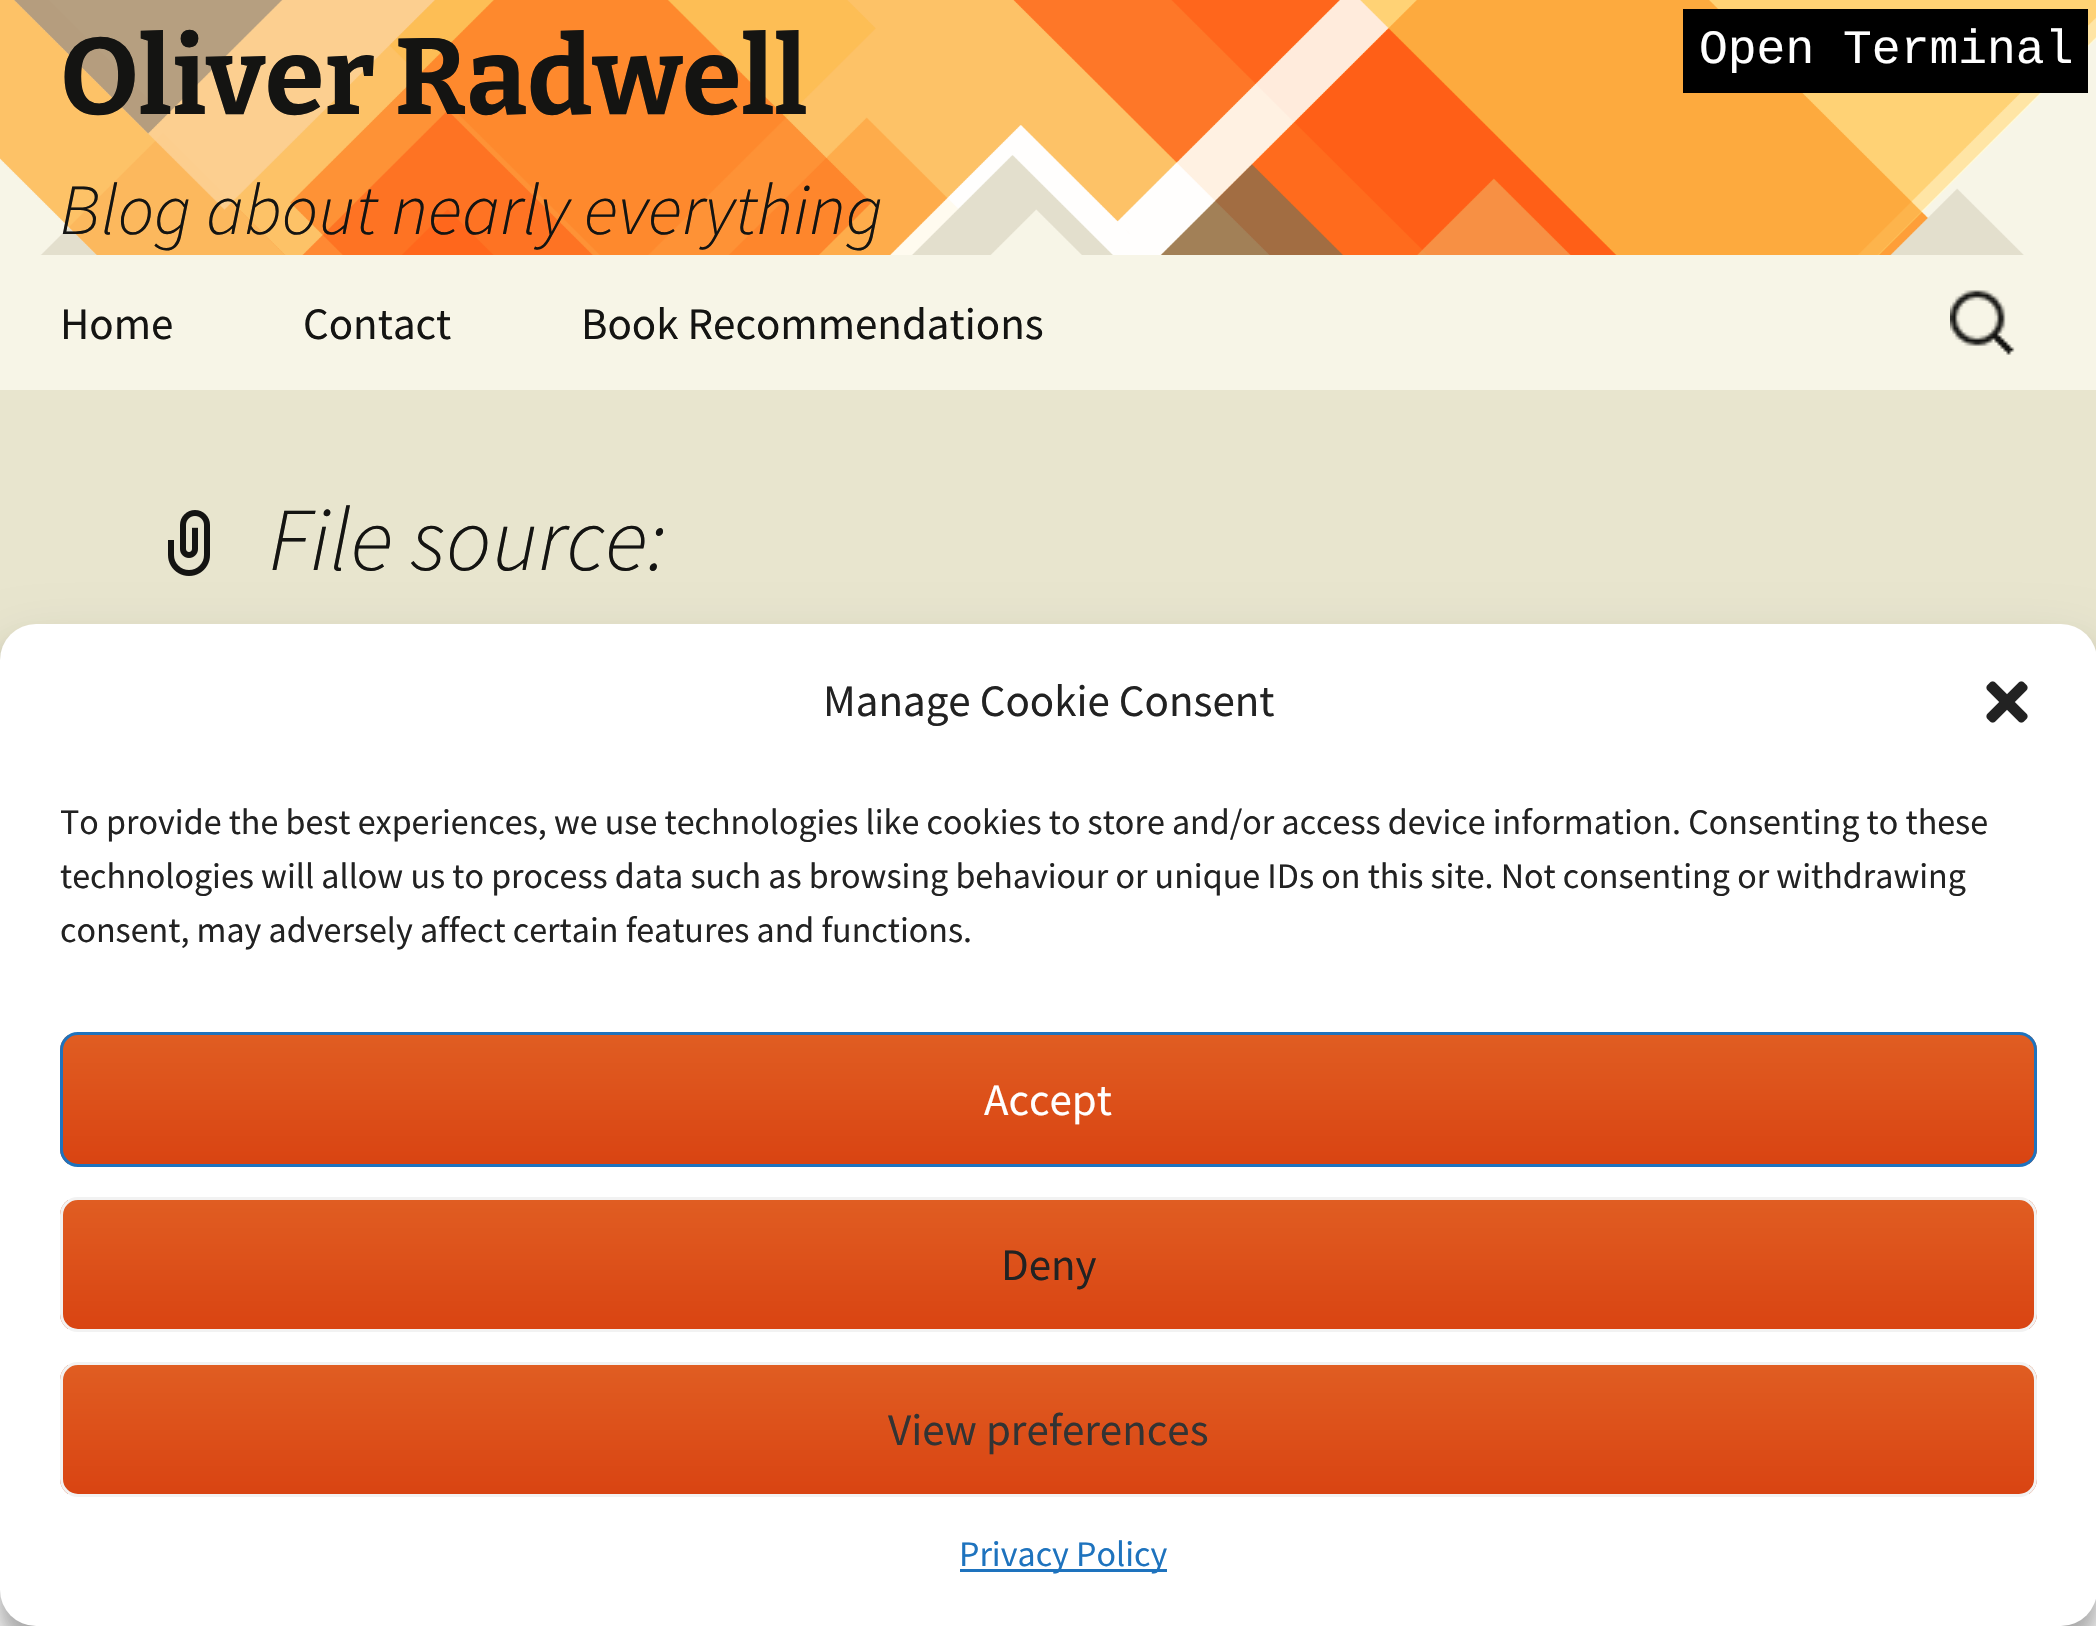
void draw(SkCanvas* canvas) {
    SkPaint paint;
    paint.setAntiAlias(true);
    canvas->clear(0xFFFFFFFF);
    canvas->drawImageRect(SkImages::DeferredFromEncodedData(SkData::MakeFromFileName("img1.png")), SkRect::MakeXYWH(0, 0, 2096, 255), SkSamplingOptions());
    SkFont font1(fontMgr->matchFamilyStyle("Bitter", SkFontStyle(100, SkFontStyle::kNormal_Width, SkFontStyle::kUpright_Slant)), 108);
    font1.setSubpixel(true);
    paint.setColor(0xFF141412);
    canvas->drawString("Oliver Radwell", 60, 114, font1, paint);
    SkFont font2(fontMgr->matchFamilyStyle("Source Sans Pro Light", SkFontStyle(300, SkFontStyle::kNormal_Width, SkFontStyle::kItalic_Slant)), 72);
    font2.setSubpixel(true);
    canvas->drawString("Blog about nearly everything", 60, 234, font2, paint);
    paint.setColor(0xFF000000);
    canvas->drawRect(SkRect::MakeXYWH(1683, 9, 405, 84), paint);
    SkFont font3(fontMgr->matchFamilyStyle("Liberation Mono", SkFontStyle::Normal()), 48);
    font3.setSubpixel(true);
    paint.setColor(0xFFFFFFFF);
    canvas->drawString("Open Terminal", 1699, 63, font3, paint);
    paint.setColor(0xFFF7F5E7);
    canvas->drawRect(SkRect::MakeXYWH(0, 255, 2096, 135), paint);
    SkFont font4(fontMgr->matchFamilyStyle("Source Sans Pro", SkFontStyle::Normal()), 45);
    font4.setSubpixel(true);
    paint.setColor(0xFF141412);
    canvas->drawString("Home", 60, 339, font4, paint);
    canvas->drawString("Contact", 303, 339, font4, paint);
    canvas->drawString("Book Recommendations", 581, 339, font4, paint);
    canvas->drawImageRect(SkImages::DeferredFromEncodedData(SkData::MakeFromFileName("img2.png")), SkRect::MakeXYWH(1950, 290, 65, 65), SkSamplingOptions());
    paint.setColor(0xFFE8E5CE);
    canvas->drawRect(SkRect::MakeXYWH(0, 390, 2096, 270), paint);
    canvas->drawImageRect(SkImages::DeferredFromEncodedData(SkData::MakeFromFileName("img3.png")), SkRect::MakeXYWH(168, 510, 42, 66), SkSamplingOptions());
    SkFont font5(fontMgr->matchFamilyStyle("Source Sans Pro Light", SkFontStyle(300, SkFontStyle::kNormal_Width, SkFontStyle::kItalic_Slant)), 90);
    font5.setSubpixel(true);
    paint.setColor(0xFF141412);
    canvas->drawString("File source:", 269, 570, font5, paint);
    paint.setColor(0x3B000000);
    paint.setMaskFilter(SkMaskFilter::MakeBlur(kNormal_SkBlurStyle, 9));
    canvas->drawRoundRect(SkRect::MakeXYWH(0, 642, 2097, 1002), 36, 36, paint);
    paint.setMaskFilter(nullptr);
    paint.setColor(0x30000000);
    paint.setMaskFilter(SkMaskFilter::MakeBlur(kNormal_SkBlurStyle, 30));
    canvas->drawRoundRect(SkRect::MakeXYWH(0, 654, 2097, 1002), 36, 36, paint);
    paint.setMaskFilter(nullptr);
    paint.setColor(0xFFFFFFFF);
    canvas->drawRoundRect(SkRect::MakeXYWH(0, 624, 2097, 1002), 36, 36, paint);
    paint.setColor(0xFF222222);
    canvas->drawString("Manage Cookie Consent", 823, 716, font4, paint);
    canvas->drawImageRect(SkImages::DeferredFromEncodedData(SkData::MakeFromFileName("img4.png")), SkRect::MakeXYWH(1986, 681, 42, 42), SkSamplingOptions());
    SkFont font6(fontMgr->matchFamilyStyle("Source Sans Pro", SkFontStyle::Normal()), 36);
    font6.setSubpixel(true);
    canvas->drawString("To provide the best experiences, we use technologies like cookies to store and/or access device information. Consenting to these", 60, 834, font6, paint);
    canvas->drawString("technologies will allow us to process data such as browsing behaviour or unique IDs on this site. Not consenting or withdrawing", 60, 888, font6, paint);
    canvas->drawString("consent, may adversely affect certain features and functions.", 60, 942, font6, paint);
    canvas->save();
    canvas->clipPath(SkPathBuilder().moveTo(78, 1032).lineTo(2019, 1032).cubicTo(2029, 1032, 2037, 1040, 2037, 1050).lineTo(2037, 1149).cubicTo(2037, 1159, 2029, 1167, 2019, 1167).lineTo(78, 1167).cubicTo(68, 1167, 60, 1159, 60, 1149).lineTo(60, 1050).cubicTo(60, 1040, 68, 1032, 78, 1032).close().detach(), true);
    {
        const SkColor colors[] = {0xFFE05D22, 0xFFD94412};
        const float stops[] = {0, 1};
        const SkPoint ends[] = {{1049, 1035}, {1049, 1164}};
        paint.setShader(SkGradientShader::MakeLinear(ends, colors, stops, 2, SkTileMode::kClamp));
        paint.setAlpha(255);
    }
    canvas->drawRect(SkRect::MakeXYWH(60, 1035, 1977, 129), paint);
    canvas->restore();
    paint.setStyle(SkPaint::kStroke_Style);
    paint.setStrokeWidth(3);
    paint.setShader(nullptr);
    paint.setColor(0xFF1E73BE);
    canvas->drawRoundRect(SkRect::MakeXYWH(61.5f, 1033.5f, 1974, 132), 16.5f, 16.5f, paint);
    paint.setStyle(SkPaint::kFill_Style);
    paint.setColor(0xFFFFFFFF);
    canvas->drawString("Accept", 984, 1115, font4, paint);
    canvas->save();
    canvas->clipPath(SkPathBuilder().moveTo(78, 1197).lineTo(2019, 1197).cubicTo(2029, 1197, 2037, 1205, 2037, 1215).lineTo(2037, 1314).cubicTo(2037, 1324, 2029, 1332, 2019, 1332).lineTo(78, 1332).cubicTo(68, 1332, 60, 1324, 60, 1314).lineTo(60, 1215).cubicTo(60, 1205, 68, 1197, 78, 1197).close().detach(), true);
    {
        const SkColor colors[] = {0xFFE05D22, 0xFFD94412};
        const float stops[] = {0, 1};
        const SkPoint ends[] = {{1049, 1200}, {1049, 1329}};
        paint.setShader(SkGradientShader::MakeLinear(ends, colors, stops, 2, SkTileMode::kClamp));
        paint.setAlpha(255);
    }
    canvas->drawRect(SkRect::MakeXYWH(60, 1200, 1977, 129), paint);
    canvas->restore();
    paint.setStyle(SkPaint::kStroke_Style);
    paint.setShader(nullptr);
    paint.setColor(0xFFF2F2F2);
    canvas->drawRoundRect(SkRect::MakeXYWH(61.5f, 1198.5f, 1974, 132), 16.5f, 16.5f, paint);
    paint.setStyle(SkPaint::kFill_Style);
    paint.setColor(0xFF222222);
    canvas->drawString("Deny", 1001, 1280, font4, paint);
    canvas->save();
    canvas->clipPath(SkPathBuilder().moveTo(78, 1362).lineTo(2019, 1362).cubicTo(2029, 1362, 2037, 1370, 2037, 1380).lineTo(2037, 1479).cubicTo(2037, 1489, 2029, 1497, 2019, 1497).lineTo(78, 1497).cubicTo(68, 1497, 60, 1489, 60, 1479).lineTo(60, 1380).cubicTo(60, 1370, 68, 1362, 78, 1362).close().detach(), true);
    {
        const SkColor colors[] = {0xFFE05D22, 0xFFD94412};
        const float stops[] = {0, 1};
        const SkPoint ends[] = {{1049, 1365}, {1049, 1494}};
        paint.setShader(SkGradientShader::MakeLinear(ends, colors, stops, 2, SkTileMode::kClamp));
        paint.setAlpha(255);
    }
    canvas->drawRect(SkRect::MakeXYWH(60, 1365, 1977, 129), paint);
    canvas->restore();
    paint.setStyle(SkPaint::kStroke_Style);
    paint.setShader(nullptr);
    paint.setColor(0xFFF2F2F2);
    canvas->drawRoundRect(SkRect::MakeXYWH(61.5f, 1363.5f, 1974, 132), 16.5f, 16.5f, paint);
    paint.setStyle(SkPaint::kFill_Style);
    paint.setColor(0xFF333333);
    canvas->drawString("View preferences", 888, 1445, font4, paint);
    paint.setColor(0xFF1E73BE);
    canvas->drawRect(SkRect::MakeXYWH(960, 1569, 207, 3), paint);
    canvas->drawString("Privacy Policy", 959, 1566, font6, paint);
}
